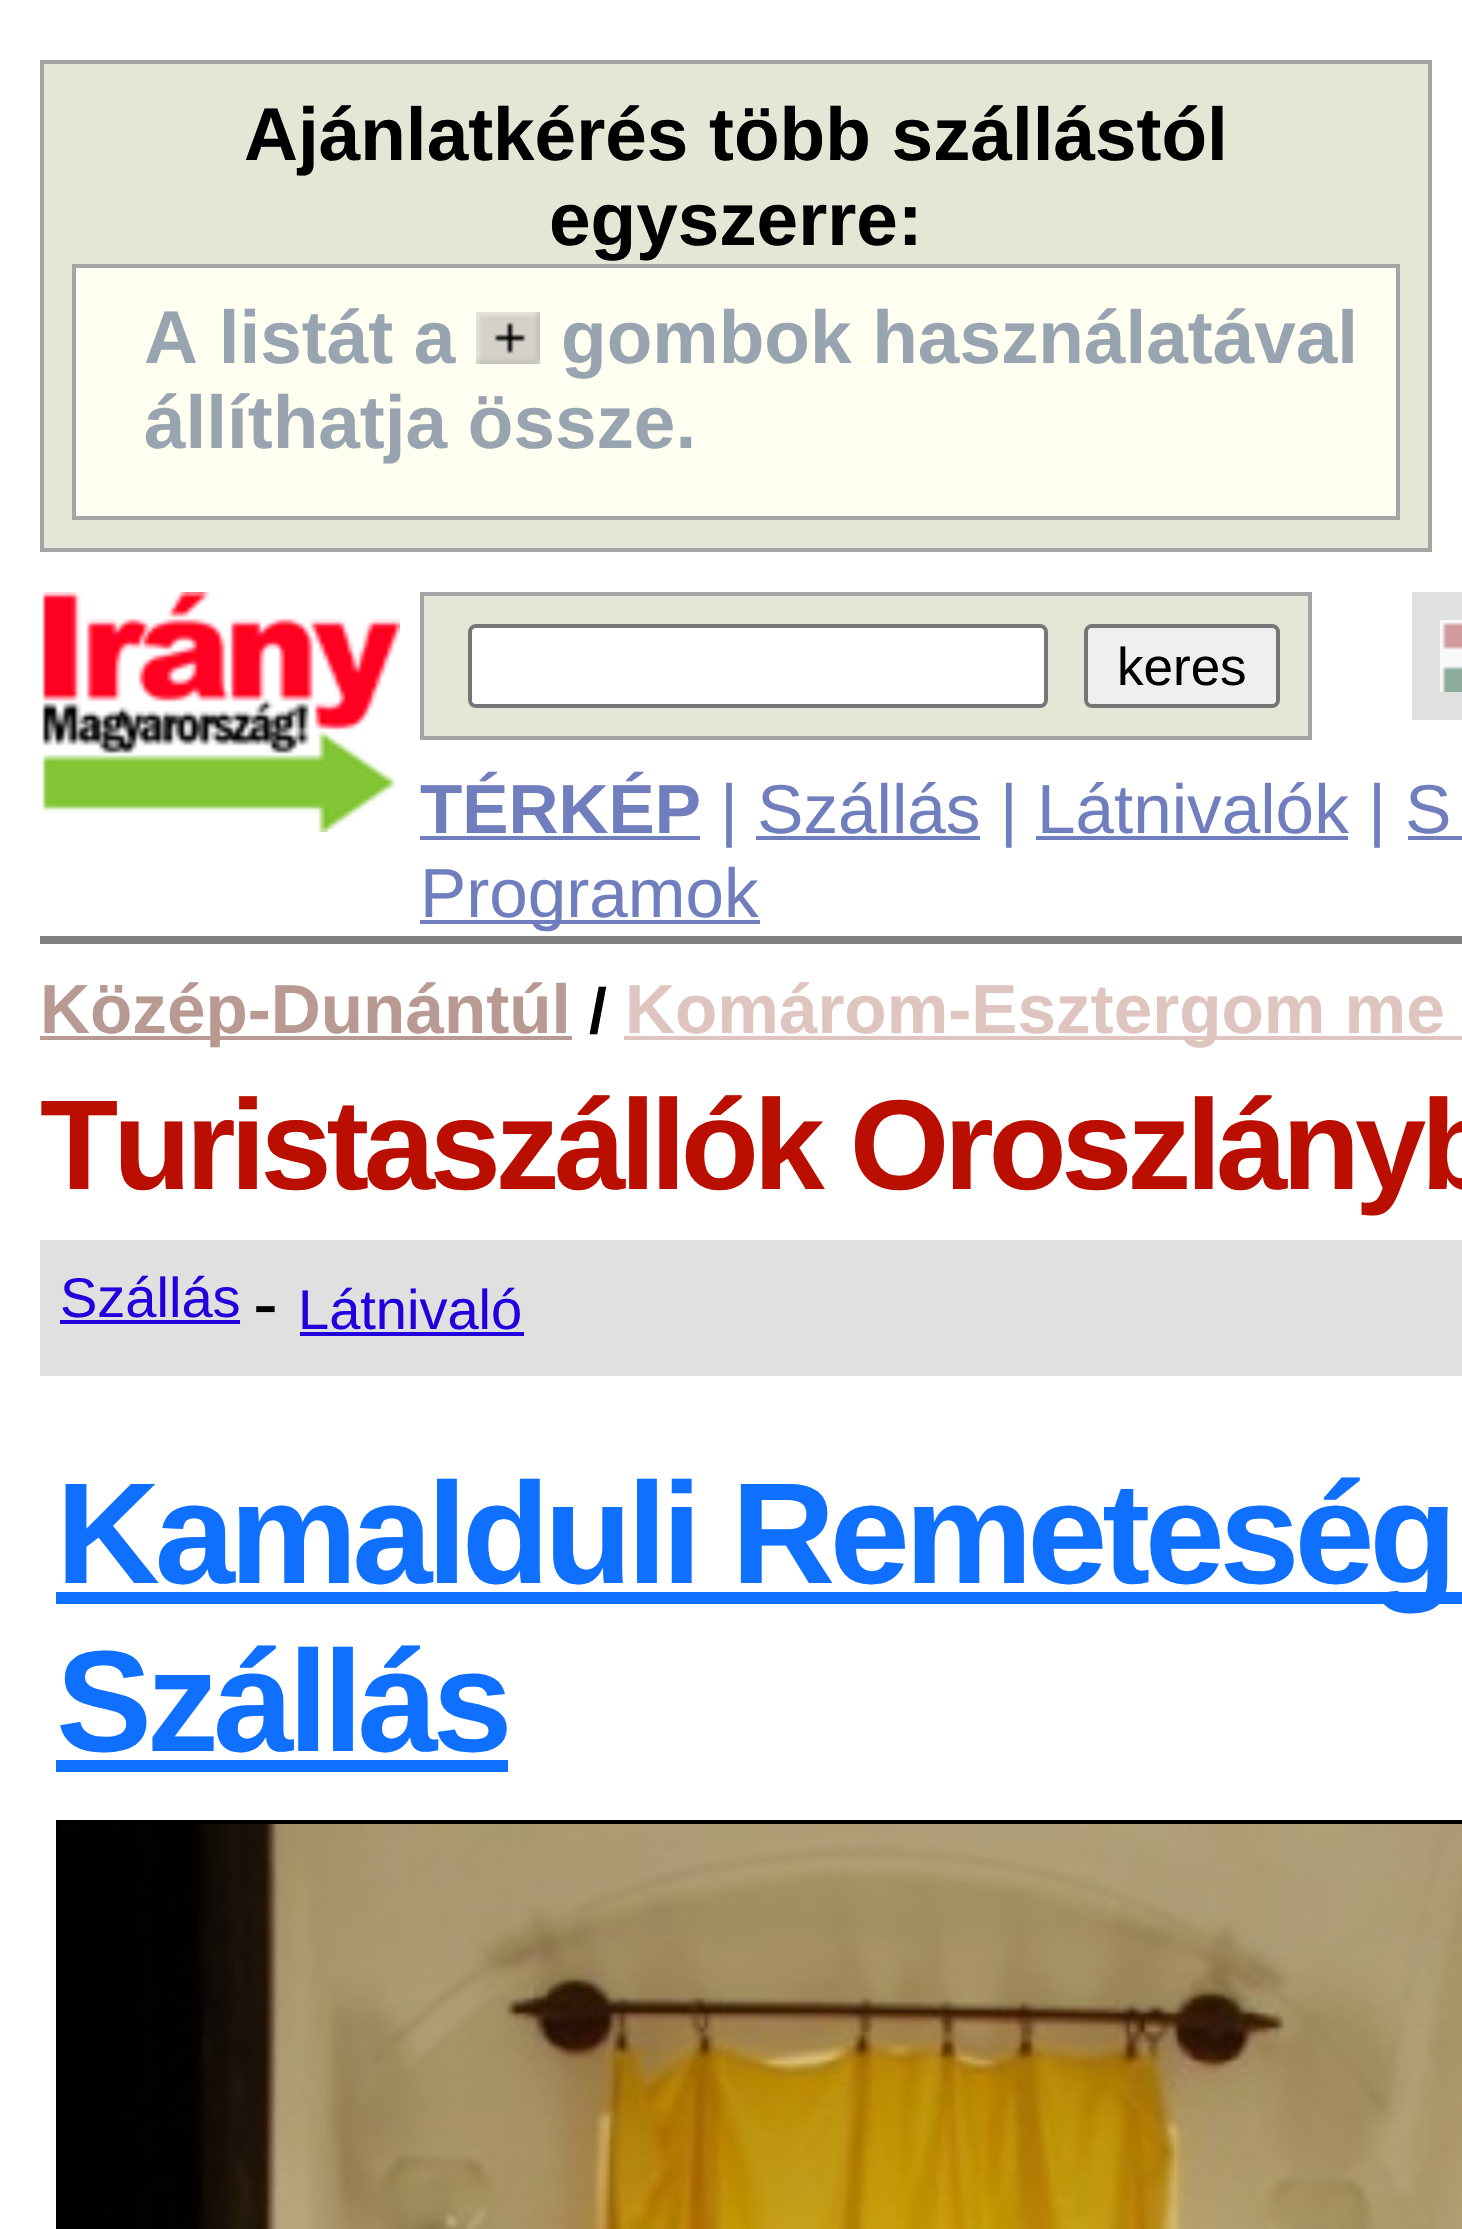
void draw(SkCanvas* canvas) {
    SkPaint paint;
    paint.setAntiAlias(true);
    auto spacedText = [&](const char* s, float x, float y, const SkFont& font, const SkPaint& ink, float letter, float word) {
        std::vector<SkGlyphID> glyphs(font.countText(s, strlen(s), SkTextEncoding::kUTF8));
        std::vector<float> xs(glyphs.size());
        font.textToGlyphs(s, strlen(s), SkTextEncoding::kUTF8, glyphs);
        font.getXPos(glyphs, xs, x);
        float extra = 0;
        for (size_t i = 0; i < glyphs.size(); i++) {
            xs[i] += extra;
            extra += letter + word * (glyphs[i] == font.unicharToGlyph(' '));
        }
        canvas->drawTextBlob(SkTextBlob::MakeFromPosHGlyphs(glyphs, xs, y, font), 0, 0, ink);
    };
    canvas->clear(0xFFFFFFFF);
    paint.setColor(0xFFA5A5A5);
    canvas->drawRect(SkRect::MakeXYWH(40, 60, 1392, 492), paint);
    paint.setColor(0xFFE6E6D6);
    canvas->drawRect(SkRect::MakeXYWH(44, 64, 1384, 484), paint);
    SkFont font1(fontMgr->matchFamilyStyle("Liberation Sans", SkFontStyle::Bold()), 74.7f);
    font1.setSubpixel(true);
    paint.setColor(0xFF000000);
    canvas->drawString("Ajánlatkérés több szállástól", 244, 160, font1, paint);
    canvas->drawString("egyszerre:", 549, 245, font1, paint);
    paint.setColor(0xFFA5A5A5);
    canvas->drawRect(SkRect::MakeXYWH(72, 264, 1328, 256), paint);
    paint.setColor(0xFFFFFFF1);
    canvas->drawRect(SkRect::MakeXYWH(76, 268, 1320, 248), paint);
    paint.setColor(0xFF99A4B1);
    canvas->drawString("A listát a", 144, 363, font1, paint);
    canvas->drawImageRect(SkImages::DeferredFromEncodedData(SkData::MakeFromFileName("img1.png")), SkRect::MakeXYWH(476, 312, 64, 52), SkSamplingOptions());
    canvas->drawString("gombok használatával", 561, 363, font1, paint);
    canvas->drawString("állíthatja össze.", 144, 448, font1, paint);
    canvas->drawImageRect(SkImages::DeferredFromEncodedData(SkData::MakeFromFileName("img2.png")), SkRect::MakeXYWH(42, 592, 358, 240), SkSamplingOptions());
    paint.setColor(0xFFE6E6D6);
    canvas->drawRect(SkRect::MakeXYWH(422, 594, 888, 144), paint);
    paint.setStyle(SkPaint::kStroke_Style);
    paint.setStrokeWidth(4);
    paint.setColor(0xFFA5A5A5);
    canvas->drawRect(SkRect::MakeXYWH(422, 594, 888, 144), paint);
    paint.setStyle(SkPaint::kFill_Style);
    paint.setColor(0xFFFFFFFF);
    canvas->drawRoundRect(SkRect::MakeXYWH(470, 626, 576, 80), 6, 6, paint);
    paint.setStyle(SkPaint::kStroke_Style);
    paint.setColor(0xFF767676);
    canvas->drawRoundRect(SkRect::MakeXYWH(470, 626, 576, 80), 6, 6, paint);
    paint.setStyle(SkPaint::kFill_Style);
    paint.setColor(0xFFEFEFEF);
    canvas->drawRoundRect(SkRect::MakeXYWH(1086, 626, 192, 80), 6, 6, paint);
    paint.setStyle(SkPaint::kStroke_Style);
    paint.setColor(0xFF767676);
    canvas->drawRoundRect(SkRect::MakeXYWH(1086, 626, 192, 80), 6, 6, paint);
    SkFont font2(fontMgr->matchFamilyStyle("Liberation Sans", SkFontStyle::Normal()), 53);
    font2.setSubpixel(true);
    paint.setStyle(SkPaint::kFill_Style);
    paint.setColor(0xFF000000);
    canvas->drawString("keres", 1117, 685, font2, paint);
    paint.setColor(0xFFE0E0E0);
    canvas->drawRect(SkRect::MakeXYWH(1412, 592, 50, 128), paint);
    canvas->drawImageRect(SkImages::DeferredFromEncodedData(SkData::MakeFromFileName("img3.png")), SkRect::MakeXYWH(1440, 620, 22, 72), SkSamplingOptions());
    SkFont font3(fontMgr->matchFamilyStyle("Liberation Sans", SkFontStyle::Bold()), 69.25f);
    font3.setSubpixel(true);
    paint.setColor(0xFF707EBD);
    canvas->drawString("TÉRKÉP", 420, 833, font3, paint);
    canvas->drawRect(SkRect::MakeXYWH(420, 836, 280, 4), paint);
    SkFont font4(fontMgr->matchFamilyStyle("Liberation Sans", SkFontStyle::Normal()), 69.25f);
    font4.setSubpixel(true);
    canvas->drawString("| Szállás | Látnivalók | S", 720, 833, font4, paint);
    canvas->drawRect(SkRect::MakeXYWH(756, 836, 224, 4), paint);
    canvas->drawRect(SkRect::MakeXYWH(1036, 836, 312, 4), paint);
    canvas->drawRect(SkRect::MakeXYWH(1408, 836, 54, 4), paint);
    canvas->drawRect(SkRect::MakeXYWH(420, 920, 340, 4), paint);
    canvas->drawString("Programok", 420, 917, font4, paint);
    paint.setColor(0xFF808080);
    canvas->drawRect(SkRect::MakeXYWH(40, 936, 1422, 8), paint);
    paint.setColor(0xFFB99A92);
    canvas->drawRect(SkRect::MakeXYWH(40, 1036, 532, 4), paint);
    canvas->drawString("Közép-Dunántúl", 40, 1033, font3, paint);
    SkFont font5(fontMgr->matchFamilyStyle("Liberation Sans", SkFontStyle::Bold()), 64);
    font5.setSubpixel(true);
    paint.setColor(0xFF000000);
    canvas->drawString("/", 589, 1033, font5, paint);
    paint.setColor(0xFFDFC5BF);
    canvas->drawRect(SkRect::MakeXYWH(624, 1036, 838, 4), paint);
    canvas->drawString("Komárom-Esztergom me", 625, 1033, font3, paint);
    SkFont font6(fontMgr->matchFamilyStyle("Liberation Sans", SkFontStyle::Bold()), 128);
    font6.setSubpixel(true);
    paint.setColor(0xFFB90E00);
    spacedText("Turistaszállók Oroszlányb", 40, 1189, font6, paint, -5.3f, 0);
    paint.setColor(0xFFE0E0E0);
    canvas->drawRect(SkRect::MakeXYWH(40, 1240, 1422, 136), paint);
    SkFont font7(fontMgr->matchFamilyStyle("Liberation Sans", SkFontStyle::Normal()), 56);
    font7.setSubpixel(true);
    paint.setColor(0xFF2200DD);
    canvas->drawString("Szállás", 60, 1317, font7, paint);
    canvas->drawRect(SkRect::MakeXYWH(60, 1320, 180, 4), paint);
    SkFont font8(fontMgr->matchFamilyStyle("Liberation Sans", SkFontStyle::Normal()), 74.7f);
    font8.setSubpixel(true);
    paint.setColor(0xFF000000);
    canvas->drawString("-", 253, 1329, font8, paint);
    paint.setColor(0xFF2200DD);
    canvas->drawString("Látnivaló", 298, 1329, font7, paint);
    canvas->drawRect(SkRect::MakeXYWH(300, 1332, 224, 4), paint);
    paint.setColor(0xFF0F6FFF);
    canvas->drawRect(SkRect::MakeXYWH(56, 1592, 1406, 12), paint);
    SkFont font9(fontMgr->matchFamilyStyle("Liberation Sans", SkFontStyle::Bold()), 144);
    font9.setSubpixel(true);
    spacedText("Kamalduli Remeteség", 56, 1583, font9, paint, -5.3f, 0);
    spacedText("Szállás", 56, 1751, font9, paint, -5.3f, 0);
    canvas->drawRect(SkRect::MakeXYWH(56, 1760, 452, 12), paint);
    paint.setStyle(SkPaint::kStroke_Style);
    paint.setColor(0xFF000000);
    canvas->drawRect(SkRect::MakeXYWH(58, 1822, 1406, 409), paint);
    canvas->drawImageRect(SkImages::DeferredFromEncodedData(SkData::MakeFromFileName("img4.png")), SkRect::MakeXYWH(60, 1824, 1402, 405), SkSamplingOptions());
}
